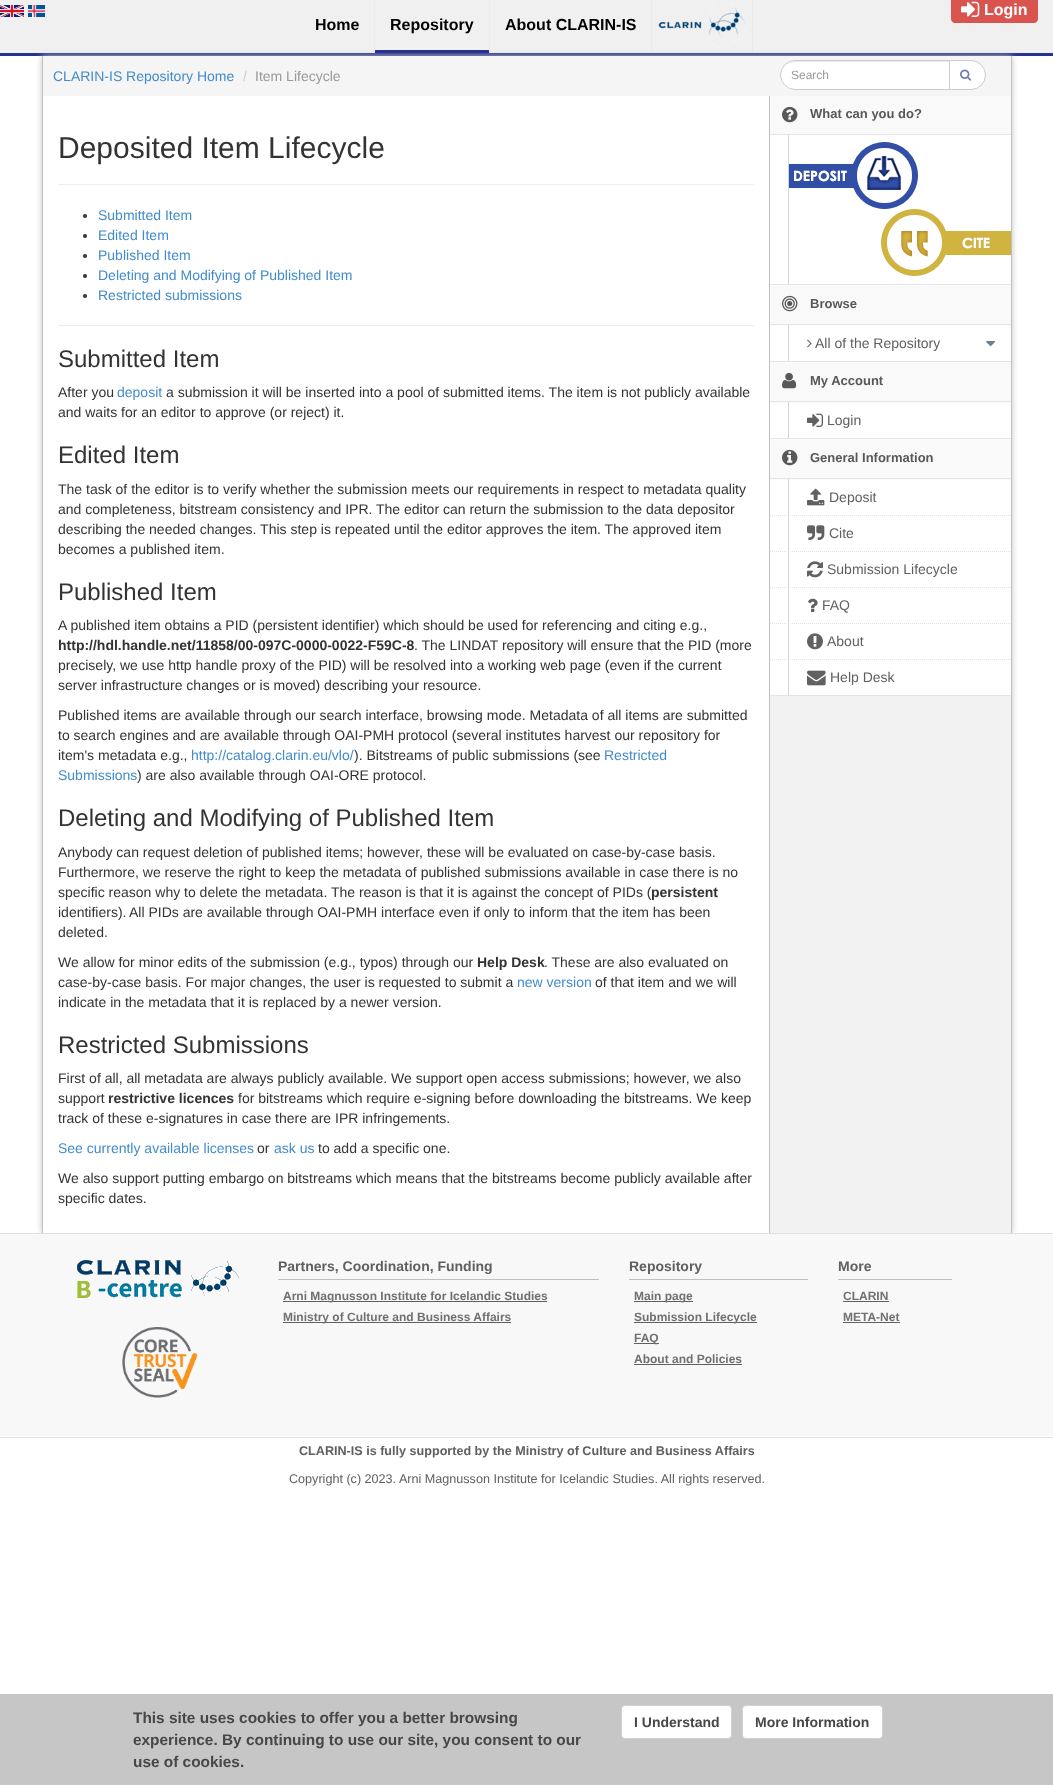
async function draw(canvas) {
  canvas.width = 1053;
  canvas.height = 1785;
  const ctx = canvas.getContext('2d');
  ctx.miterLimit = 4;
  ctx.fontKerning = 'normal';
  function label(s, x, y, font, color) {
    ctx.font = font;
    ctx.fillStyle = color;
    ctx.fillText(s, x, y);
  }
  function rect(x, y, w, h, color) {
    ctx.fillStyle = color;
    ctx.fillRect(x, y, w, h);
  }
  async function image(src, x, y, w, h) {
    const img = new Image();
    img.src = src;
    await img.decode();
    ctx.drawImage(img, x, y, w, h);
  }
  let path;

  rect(0, 0, 1053, 1785, '#fff');
  rect(0, 0, 1053, 53, '#f0f0f0');
  await image('assets/img1.png', 0, 5, 24, 12);
  await image('assets/img2.png', 28, 5, 17, 12);
  ctx.fillStyle = '#d9534f';
  path = new Path2D('M955-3H984V23H955C953 23 951 21 951 19V1C951-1 953-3 955-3Z');
  ctx.fill(path);
  path = new Path2D('M984-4H1034C1036-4 1038-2 1038 0V19C1038 21 1036 23 1034 23H984Z');
  ctx.fill(path);
  await image('assets/img3.png', 961, 1, 19, 16);
  label('Login', 984, 15, 'bold 16px Liberation Sans', '#fff');
  rect(0, 53, 1053, 3, '#29338e');
  ctx.save();
  path = new Path2D('M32 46H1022V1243H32ZM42 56H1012V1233H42Z');
  ctx.clip(path, 'evenodd');
  ctx.fillStyle = '#c0c0c0';
  ctx.filter = 'blur(3px)';
  ctx.beginPath();
  ctx.rect(42, 56, 970, 1177);
  ctx.fill();
  ctx.filter = 'none';
  ctx.restore();
  path = new Path2D('M374.5 0V53');
  ctx.strokeStyle = '#e4e4e4';
  ctx.setLineDash([1, 1]);
  ctx.stroke(path);
  label('Home', 315, 30, 'bold 16px Liberation Sans', '#000');
  path = new Path2D('M489.5 0V53');
  ctx.stroke(path);
  rect(375, 50, 114, 3, '#29338e');
  label('Repository', 390, 30, 'bold 16px Liberation Sans', '#000');
  path = new Path2D('M651.5 0V53');
  ctx.stroke(path);
  label('About CLARIN-IS', 505, 30, 'bold 16px Liberation Sans', '#000');
  path = new Path2D('M752.5 0V53');
  ctx.stroke(path);
  await image('assets/img4.png', 658, 3, 88, 45);
  rect(1011, 56, 1, 1177, '#c0c0c0');
  rect(42, 56, 1, 1177, '#c0c0c0');
  rect(43, 56, 968, 40, '#f5f5f5');
  label('CLARIN-IS Repository Home', 53, 81, '14px Liberation Sans', '#428bca');
  label('/', 243, 81, '14px Liberation Sans', '#ccc');
  label('Item Lifecycle', 255, 81, '14px Liberation Sans', '#999');
  ctx.fillStyle = '#fff';
  ctx.beginPath();
  ctx.roundRect(780, 60, 170, 30, [15, 0, 0, 15]);
  ctx.fill();
  ctx.fillStyle = '#ececec';
  path = new Path2D('M795 62H949V61H821C810 61 780 55 781 75C781 68 787 62 795 62Z');
  ctx.fill(path);
  ctx.beginPath();
  ctx.roundRect(780.5, 60.5, 169, 29, [14.5, 0, 0, 14.5]);
  ctx.strokeStyle = '#ccc';
  ctx.setLineDash([]);
  ctx.stroke();
  label('Search', 791, 79, '12px Liberation Sans', '#999');
  ctx.fillStyle = '#fff';
  ctx.beginPath();
  ctx.roundRect(949.5, 60.5, 36, 29, [0, 14.5, 14.5, 0]);
  ctx.fill();
  ctx.stroke();
  await image('assets/img5.png', 960, 69, 12, 12);
  rect(770, 696, 241, 537, '#f2f2f2');
  rect(769, 96, 1, 1137, '#c0c0c0');
  label('Deposited Item Lifecycle', 58, 158, '30px Liberation Sans', '#333');
  rect(58, 184, 696, 1, '#eee');
  ctx.fillStyle = '#333';
  ctx.beginPath();
  ctx.arc(85, 216, 2, 0, 2 * Math.PI);
  ctx.fill();
  label('Submitted Item', 98, 220, '14px Liberation Sans', '#428bca');
  ctx.fillStyle = '#333';
  ctx.beginPath();
  ctx.arc(85, 236, 2, 0, 2 * Math.PI);
  ctx.fill();
  label('Edited Item', 98, 240, '14px Liberation Sans', '#428bca');
  ctx.fillStyle = '#333';
  ctx.beginPath();
  ctx.arc(85, 256, 2, 0, 2 * Math.PI);
  ctx.fill();
  label('Published Item', 98, 260, '14px Liberation Sans', '#428bca');
  ctx.fillStyle = '#333';
  ctx.beginPath();
  ctx.arc(85, 276, 2, 0, 2 * Math.PI);
  ctx.fill();
  label('Deleting and Modifying of Published Item', 98, 280, '14px Liberation Sans', '#428bca');
  ctx.fillStyle = '#333';
  ctx.beginPath();
  ctx.arc(85, 296, 2, 0, 2 * Math.PI);
  ctx.fill();
  label('Restricted submissions', 98, 300, '14px Liberation Sans', '#428bca');
  rect(58, 325, 696, 1, '#eee');
  label('Submitted Item', 58, 367, '24px Liberation Sans', '#333');
  label('After you', 58, 397, '14px Liberation Sans', '#333');
  label('deposit', 117, 397, '14px Liberation Sans', '#428bca');
  label('a submission it will be inserted into a pool of submitted items. The item is not publicly available', 166, 397, '14px Liberation Sans', '#333');
  label('and waits for an editor to approve (or reject) it.', 58, 417, '14px Liberation Sans', '#333');
  label('Edited Item', 58, 463, '24px Liberation Sans', '#333');
  label('The task of the editor is to verify whether the submission meets our requirements in respect to metadata quality', 58, 494, '14px Liberation Sans', '#333');
  label('and completeness, bitstream consistency and IPR. The editor can return the submission to the data depositor', 58, 514, '14px Liberation Sans', '#333');
  label('describing the needed changes. This step is repeated until the editor approves the item. The approved item', 58, 534, '14px Liberation Sans', '#333');
  label('becomes a published item.', 58, 554, '14px Liberation Sans', '#333');
  label('Published Item', 58, 600, '24px Liberation Sans', '#333');
  label('A published item obtains a PID (persistent identifier) which should be used for referencing and citing e.g.,', 58, 630, '14px Liberation Sans', '#333');
  label('http://hdl.handle.net/11858/00-097C-0000-0022-F59C-8', 58, 650, 'bold 14px Liberation Sans', '#333');
  label('. The LINDAT repository will ensure that the PID (more', 414, 650, '14px Liberation Sans', '#333');
  label('precisely, we use http handle proxy of the PID) will be resolved into a working web page (even if the current', 58, 670, '14px Liberation Sans', '#333');
  label('server infrastructure changes or is moved) describing your resource.', 58, 690, '14px Liberation Sans', '#333');
  label('Published items are available through our search interface, browsing mode. Metadata of all items are submitted', 58, 720, '14px Liberation Sans', '#333');
  label('to search engines and are available through OAI-PMH protocol (several institutes harvest our repository for', 58, 740, '14px Liberation Sans', '#333');
  label('item\'s metadata e.g.,', 58, 760, '14px Liberation Sans', '#333');
  label('http://catalog.clarin.eu/vlo/', 191, 760, '14px Liberation Sans', '#428bca');
  label('). Bitstreams of public submissions (see', 354, 760, '14px Liberation Sans', '#333');
  label('Restricted', 604, 760, '14px Liberation Sans', '#428bca');
  label('Submissions', 58, 780, '14px Liberation Sans', '#428bca');
  label(') are also available through OAI-ORE protocol.', 137, 780, '14px Liberation Sans', '#333');
  label('Deleting and Modifying of Published Item', 58, 826, '24px Liberation Sans', '#333');
  label('Anybody can request deletion of published items; however, these will be evaluated on case-by-case basis.', 58, 857, '14px Liberation Sans', '#333');
  label('Furthermore, we reserve the right to keep the metadata of published submissions available in case there is no', 58, 877, '14px Liberation Sans', '#333');
  label('specific reason why to delete the metadata. The reason is that it is against the concept of PIDs (', 58, 897, '14px Liberation Sans', '#333');
  label('persistent', 651, 897, 'bold 14px Liberation Sans', '#333');
  label('identifiers).', 58, 917, '14px Liberation Sans', '#333');
  label('All PIDs are available through OAI-PMH interface even if only to inform that the item has been', 129, 917, '14px Liberation Sans', '#333');
  label('deleted.', 58, 937, '14px Liberation Sans', '#333');
  label('We allow for minor edits of the submission (e.g., typos) through our', 58, 967, '14px Liberation Sans', '#333');
  label('Help Desk', 477, 967, 'bold 14px Liberation Sans', '#333');
  label('. These are also evaluated on', 544, 967, '14px Liberation Sans', '#333');
  label('case-by-case basis. For major changes, the user is requested to submit a', 58, 987, '14px Liberation Sans', '#333');
  label('new version', 517, 987, '14px Liberation Sans', '#428bca');
  label('of that item and we will', 595, 987, '14px Liberation Sans', '#333');
  label('indicate in the metadata that it is replaced by a newer version.', 58, 1007, '14px Liberation Sans', '#333');
  label('Restricted Submissions', 58, 1053, '24px Liberation Sans', '#333');
  label('First of all, all metadata are always publicly available. We support open access submissions; however, we also', 58, 1083, '14px Liberation Sans', '#333');
  label('support', 58, 1103, '14px Liberation Sans', '#333');
  label('restrictive licences', 108, 1103, 'bold 14px Liberation Sans', '#333');
  label('for bitstreams which require e-signing before downloading the bitstreams. We keep', 238, 1103, '14px Liberation Sans', '#333');
  label('track of these e-signatures in case there are IPR infringements.', 58, 1123, '14px Liberation Sans', '#333');
  label('See currently available licenses', 58, 1153, '14px Liberation Sans', '#428bca');
  label('or', 257, 1153, '14px Liberation Sans', '#333');
  label('ask us', 274, 1153, '14px Liberation Sans', '#428bca');
  label('to add a specific one.', 318, 1153, '14px Liberation Sans', '#333');
  label('We also support putting embargo on bitstreams which means that the bitstreams become publicly available after', 58, 1183, '14px Liberation Sans', '#333');
  label('specific dates.', 58, 1203, '14px Liberation Sans', '#333');
  rect(770, 284, 241, 1, '#e5e5e5');
  rect(770, 96, 241, 38, '#f9f9f9');
  await image('assets/img6.png', 782, 106, 16, 17);
  label('What can you do?', 810, 118, 'bold 13px Liberation Sans', '#585858');
  rect(770, 134, 241, 1, '#e5e5e5');
  rect(788, 135, 1, 149, '#ccd7e2');
  await image('assets/img7.png', 789, 142, 129, 67);
  await image('assets/img8.png', 881, 209, 130, 67);
  rect(770, 285, 241, 1, '#fcfcfc');
  rect(770, 361, 241, 1, '#e5e5e5');
  rect(770, 286, 241, 38, '#f9f9f9');
  await image('assets/img9.png', 782, 295, 16, 17);
  label('Browse', 810, 308, 'bold 13px Liberation Sans', '#585858');
  rect(770, 324, 241, 1, '#e5e5e5');
  rect(770, 325, 241, 1, '#fafafa');
  rect(788, 325, 1, 36, '#ccd7e2');
  await image('assets/img10.png', 807, 339, 5, 9);
  label('All of the Repository', 815, 348, '14px Liberation Sans', '#606060');
  await image('assets/img11.png', 986, 341, 10, 6);
  rect(770, 362, 241, 1, '#fcfcfc');
  rect(770, 438, 241, 1, '#e5e5e5');
  rect(770, 363, 241, 38, '#f9f9f9');
  await image('assets/img12.png', 782, 372, 15, 17);
  label('My Account', 810, 385, 'bold 13px Liberation Sans', '#585858');
  rect(770, 401, 241, 1, '#e5e5e5');
  rect(770, 402, 241, 1, '#fafafa');
  rect(788, 402, 1, 36, '#ccd7e2');
  await image('assets/img13.png', 807, 413, 16, 14);
  label('Login', 827, 425, '14px Liberation Sans', '#606060');
  rect(770, 439, 241, 1, '#fcfcfc');
  rect(770, 695, 241, 1, '#e5e5e5');
  rect(770, 440, 241, 38, '#f9f9f9');
  await image('assets/img14.png', 782, 449, 16, 17);
  label('General Information', 810, 462, 'bold 13px Liberation Sans', '#585858');
  rect(770, 478, 241, 1, '#e5e5e5');
  rect(770, 479, 241, 1, '#fafafa');
  path = new Path2D('M770 515.5H1011');
  ctx.strokeStyle = '#e4e4e4';
  ctx.setLineDash([1, 1]);
  ctx.stroke(path);
  path = new Path2D('M770 551.5H1011');
  ctx.stroke(path);
  path = new Path2D('M770 587.5H1011');
  ctx.stroke(path);
  path = new Path2D('M770 623.5H1011');
  ctx.stroke(path);
  path = new Path2D('M770 659.5H1011');
  ctx.stroke(path);
  rect(788, 479, 1, 216, '#ccd7e2');
  await image('assets/img15.png', 807, 488, 18, 18);
  label('Deposit', 829, 502, '14px Liberation Sans', '#606060');
  await image('assets/img16.png', 807, 525, 18, 15);
  label('Cite', 829, 538, '14px Liberation Sans', '#606060');
  await image('assets/img17.png', 807, 561, 16, 17);
  label('Submission Lifecycle', 827, 574, '14px Liberation Sans', '#606060');
  await image('assets/img18.png', 808, 598, 10, 14);
  label('FAQ', 822, 610, '14px Liberation Sans', '#606060');
  await image('assets/img19.png', 807, 633, 16, 17);
  label('About', 827, 646, '14px Liberation Sans', '#606060');
  await image('assets/img20.png', 807, 670, 19, 16);
  label('Help Desk', 830, 682, '14px Liberation Sans', '#606060');
  rect(0, 1234, 1053, 202, '#f8f8f8');
  rect(0, 1233, 1053, 1, '#e0e0e0');
  rect(0, 1437, 1053, 1, '#e0e0e0');
  await image('assets/img21.png', 77, 1260, 162, 38);
  await image('assets/img22.png', 122, 1327, 76, 71);
  rect(278, 1279, 321, 1, '#c0c0c0');
  label('Partners, Coordination, Funding', 278, 1271, 'bold 14px Liberation Sans', '#606060');
  rect(283, 1301, 264, 1, '#606060');
  label('Arni Magnusson Institute for Icelandic Studies', 283, 1300, 'bold 12px Liberation Sans', '#707070');
  rect(283, 1322, 228, 1, '#606060');
  label('Ministry of Culture and Business Affairs', 283, 1321, 'bold 12px Liberation Sans', '#707070');
  rect(629, 1279, 179, 1, '#c0c0c0');
  label('Repository', 629, 1271, 'bold 14px Liberation Sans', '#606060');
  rect(634, 1301, 59, 1, '#606060');
  label('Main page', 634, 1300, 'bold 12px Liberation Sans', '#707070');
  rect(634, 1322, 123, 1, '#606060');
  label('Submission Lifecycle', 634, 1321, 'bold 12px Liberation Sans', '#707070');
  rect(634, 1343, 25, 1, '#606060');
  label('FAQ', 634, 1342, 'bold 12px Liberation Sans', '#707070');
  label('About and Policies', 634, 1363, 'bold 12px Liberation Sans', '#707070');
  rect(634, 1364, 108, 1, '#606060');
  rect(838, 1279, 114, 1, '#c0c0c0');
  label('More', 838, 1271, 'bold 14px Liberation Sans', '#606060');
  label('CLARIN', 843, 1300, 'bold 12px Liberation Sans', '#707070');
  rect(843, 1301, 46, 1, '#606060');
  label('META-Net', 843, 1321, 'bold 12px Liberation Sans', '#707070');
  rect(843, 1322, 57, 1, '#606060');
  label('CLARIN-IS is fully supported by the Ministry of Culture and Business Affairs', 299, 1455, 'bold 12.6px Liberation Sans', '#606060');
  label('Copyright (c) 2023. Arni Magnusson Institute for Icelandic Studies. All rights reserved.', 289, 1483, '12.6px Liberation Sans', '#606060');
  rect(0, 1694, 1053, 91, '#c6c6c6');
  label('This site uses cookies to offer you a better browsing', 133, 1723, 'bold 15.4px Liberation Sans', '#474747');
  label('experience. By continuing to use our site, you consent to our', 133, 1745, 'bold 15.4px Liberation Sans', '#474747');
  label('use of cookies.', 133, 1767, 'bold 15.4px Liberation Sans', '#474747');
  ctx.fillStyle = '#fff';
  ctx.beginPath();
  ctx.roundRect(621.5, 1705.5, 110, 33, 3.5);
  ctx.fill();
  ctx.strokeStyle = '#d1d1d1';
  ctx.setLineDash([]);
  ctx.stroke();
  label('I Understand', 634, 1727, 'bold 14px Liberation Sans', '#474747');
  ctx.fillStyle = '#fff';
  ctx.beginPath();
  ctx.roundRect(742.5, 1705.5, 140, 33, 3.5);
  ctx.fill();
  ctx.stroke();
  label('More Information', 755, 1727, 'bold 14px Liberation Sans', '#474747');
}

draw(document.querySelector('canvas'));
